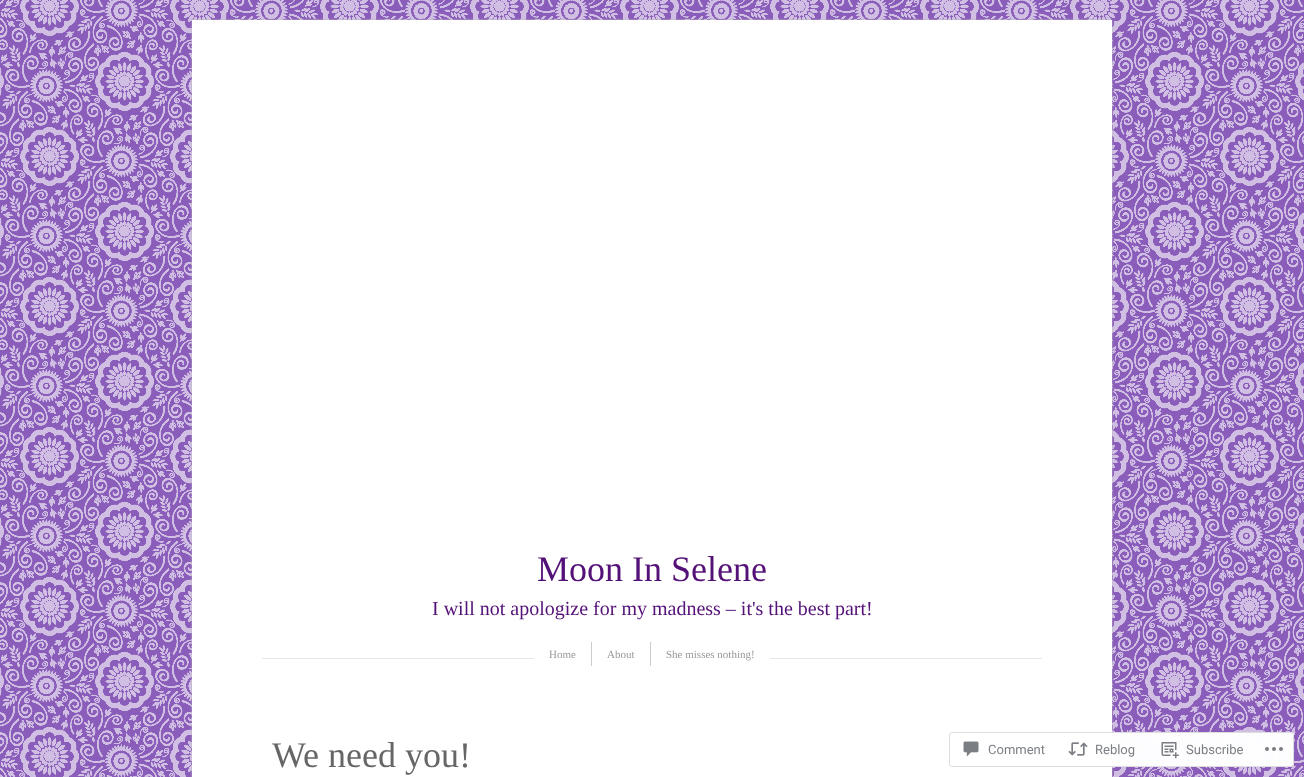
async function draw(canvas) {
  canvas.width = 1304;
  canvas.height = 777;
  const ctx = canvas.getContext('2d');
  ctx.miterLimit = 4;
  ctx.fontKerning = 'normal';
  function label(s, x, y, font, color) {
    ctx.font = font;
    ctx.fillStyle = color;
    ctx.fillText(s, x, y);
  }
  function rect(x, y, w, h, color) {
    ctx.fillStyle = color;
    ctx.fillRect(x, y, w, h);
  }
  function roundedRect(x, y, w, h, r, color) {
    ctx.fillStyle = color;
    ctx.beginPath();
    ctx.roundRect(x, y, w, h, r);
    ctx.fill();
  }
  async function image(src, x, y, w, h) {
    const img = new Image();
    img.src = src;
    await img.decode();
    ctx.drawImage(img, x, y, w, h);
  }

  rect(0, 0, 1304, 777, '#8a5dba');
  await image('assets/img1.png', 0, 0, 1304, 777);
  ctx.fillStyle = '#bbb';
  ctx.filter = 'blur(1px)';
  ctx.beginPath();
  ctx.rect(192, 20, 920, 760);
  ctx.fill();
  ctx.filter = 'none';
  rect(192, 20, 920, 757, '#fff');
  label('Moon In Selene', 537, 581, '36px Liberation Serif', '#541177');
  label('I will not apologize for my madness – it\'s the best part!', 432, 615, '20px Liberation Serif', '#541177');
  rect(262, 658, 780, 1, '#e7e7e7');
  rect(534, 658, 236, 1, '#fff');
  label('Home', 549, 658, '11px Liberation Serif', '#999');
  rect(591, 642, 1, 24, '#ccc');
  label('About', 607, 658, '11px Liberation Serif', '#999');
  rect(650, 642, 1, 24, '#ccc');
  label('She misses nothing!', 666, 658, '11px Liberation Serif', '#999');
  label('We need you!', 272, 767, '36px Liberation Serif', '#666');
  roundedRect(949, 732, 345, 35, 3, '#fffffffa');
  ctx.beginPath();
  ctx.roundRect(949.5, 732.5, 344, 34, 2.5);
  ctx.strokeStyle = '#dcdcdefa';
  ctx.stroke();
  await image('assets/img2.png', 963, 741, 16, 16);
  label('Comment', 988, 754, '13px Roboto', '#7b7f85');
  await image('assets/img3.png', 1068, 742, 20, 14);
  label('Reblog', 1095, 754, '13px Roboto', '#7b7f85');
  await image('assets/img4.png', 1161, 742, 18, 17);
  label('Subscribe', 1186, 754, '13px Roboto', '#7b7f85');
  await image('assets/img5.png', 1265, 747, 18, 4);
}

draw(document.querySelector('canvas'));
